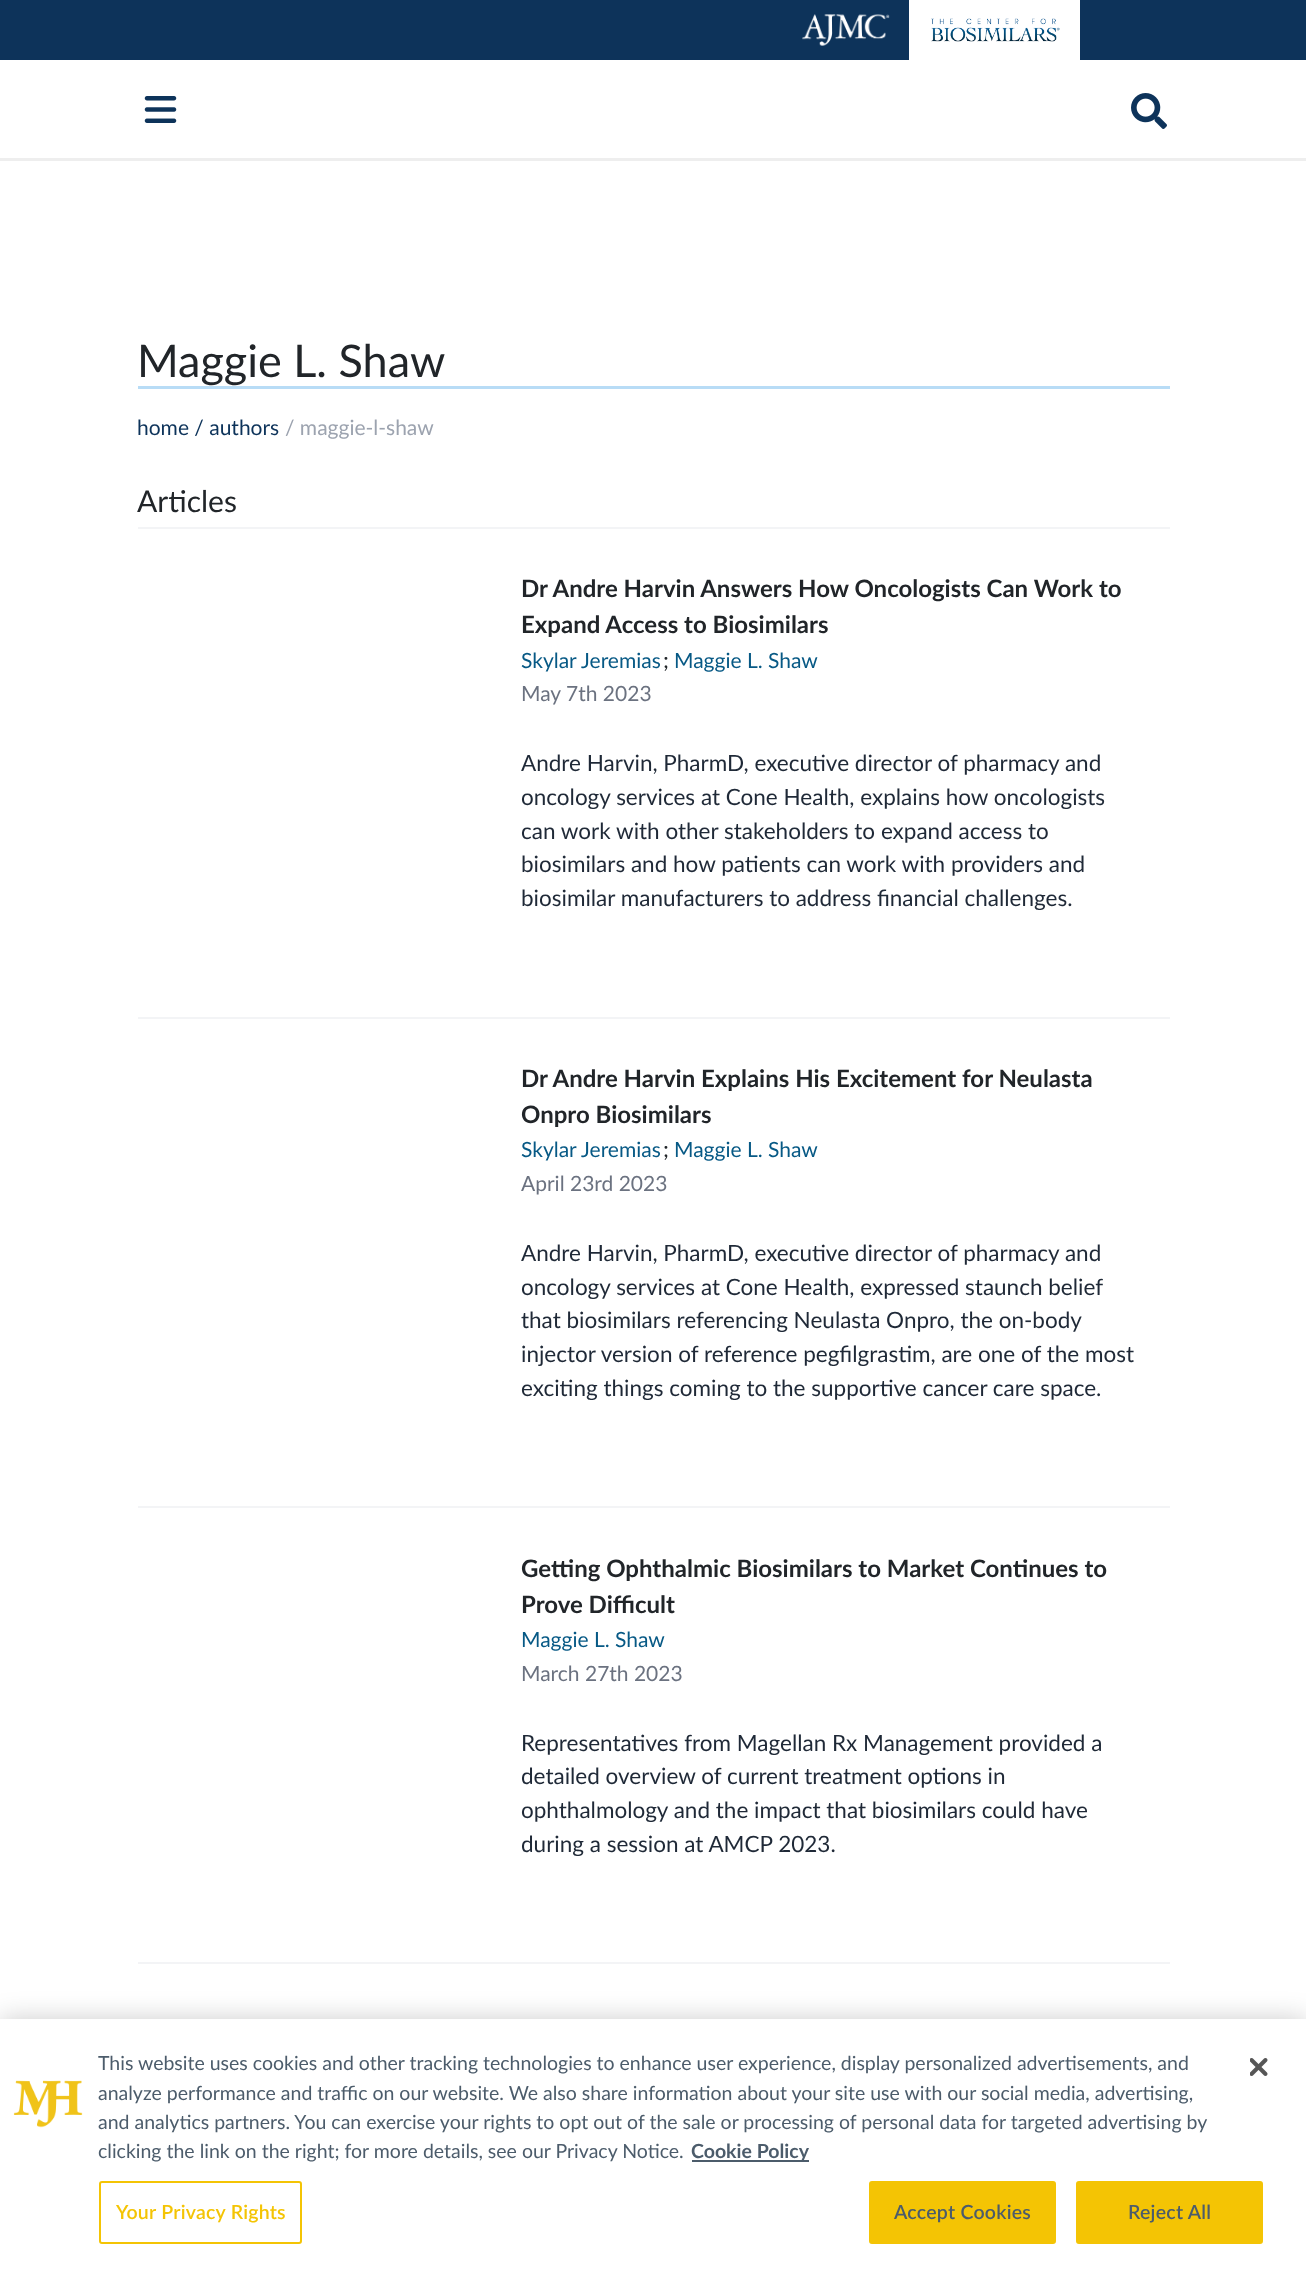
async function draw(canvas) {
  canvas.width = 1306;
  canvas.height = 2272;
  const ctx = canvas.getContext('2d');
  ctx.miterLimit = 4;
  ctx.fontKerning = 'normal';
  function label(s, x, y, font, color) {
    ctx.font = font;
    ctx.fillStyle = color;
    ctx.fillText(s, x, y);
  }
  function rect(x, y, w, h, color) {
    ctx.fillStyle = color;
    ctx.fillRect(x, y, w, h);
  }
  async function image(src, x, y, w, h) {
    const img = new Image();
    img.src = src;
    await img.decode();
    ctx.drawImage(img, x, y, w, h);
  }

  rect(0, 0, 1306, 2272, '#fff');
  rect(0, 0, 1306, 60, '#0d335a');
  await image('assets/img1.png', 802, 14, 88, 32);
  rect(909, 0, 171, 60, '#fff');
  await image('assets/img2.png', 931, 18, 129, 24);
  await image('assets/img3.png', 144, 96, 33, 27);
  await image('assets/img4.png', 1131, 93, 36, 36);
  rect(0, 158, 1306, 3, '#eee');
  label('Maggie L. Shaw', 137, 377, '45px Lato', '#212529');
  rect(138, 386, 1032, 3, '#b8dcf6');
  label('home / authors', 137, 435, '21px Lato', '#0d335a');
  label('/ maggie-l-shaw', 285, 435, '21px Lato', '#9ca3af');
  label('Articles', 137, 512, '30px Lato', '#212529');
  rect(138, 527, 1032, 2, '#f3f4f6');
  label('Dr Andre Harvin Answers How Oncologists Can Work to', 521, 597, 'bold 24px Lato', '#212529');
  label('Expand Access to Biosimilars', 521, 633, 'bold 24px Lato', '#212529');
  label('Skylar Jeremias', 521, 668, '21px Lato', '#075985');
  label(';', 663, 668, '22.5px Lato', '#212529');
  label('Maggie L. Shaw', 674, 668, '21px Lato', '#075985');
  label('May 7th 2023', 521, 701, '21px Lato', '#6b7280');
  label('Andre Harvin, PharmD, executive director of pharmacy and', 521, 771, '22.5px Lato', '#1f2937');
  label('oncology services at Cone Health, explains how oncologists', 521, 805, '22.5px Lato', '#1f2937');
  label('can work with other stakeholders to expand access to', 521, 839, '22.5px Lato', '#1f2937');
  label('biosimilars and how patients can work with providers and', 521, 872, '22.5px Lato', '#1f2937');
  label('biosimilar manufacturers to address financial challenges.', 521, 906, '22.5px Lato', '#1f2937');
  rect(138, 1017, 1032, 2, '#f3f4f6');
  label('Dr Andre Harvin Explains His Excitement for Neulasta', 521, 1087, 'bold 24px Lato', '#212529');
  label('Onpro Biosimilars', 521, 1123, 'bold 24px Lato', '#212529');
  label('Skylar Jeremias', 521, 1157, '21px Lato', '#075985');
  label(';', 663, 1157, '22.5px Lato', '#212529');
  label('Maggie L. Shaw', 674, 1157, '21px Lato', '#075985');
  label('April 23rd 2023', 521, 1191, '21px Lato', '#6b7280');
  label('Andre Harvin, PharmD, executive director of pharmacy and', 521, 1261, '22.5px Lato', '#1f2937');
  label('oncology services at Cone Health, expressed staunch belief', 521, 1295, '22.5px Lato', '#1f2937');
  label('that biosimilars referencing Neulasta Onpro, the on-body', 521, 1328, '22.5px Lato', '#1f2937');
  label('injector version of reference pegfilgrastim, are one of the most', 521, 1362, '22.5px Lato', '#1f2937');
  label('exciting things coming to the supportive cancer care space.', 521, 1396, '22.5px Lato', '#1f2937');
  rect(138, 1506, 1032, 2, '#f3f4f6');
  label('Getting Ophthalmic Biosimilars to Market Continues to', 521, 1577, 'bold 24px Lato', '#212529');
  label('Prove Difficult', 521, 1613, 'bold 24px Lato', '#212529');
  label('Maggie L. Shaw', 521, 1647, '21px Lato', '#075985');
  label('March 27th 2023', 521, 1681, '21px Lato', '#6b7280');
  label('Representatives from Magellan Rx Management provided a', 521, 1751, '22.5px Lato', '#1f2937');
  label('detailed overview of current treatment options in', 521, 1784, '22.5px Lato', '#1f2937');
  label('ophthalmology and the impact that biosimilars could have', 521, 1818, '22.5px Lato', '#1f2937');
  label('during a session at AMCP 2023.', 521, 1852, '22.5px Lato', '#1f2937');
  rect(138, 1962, 1032, 2, '#f3f4f6');
  ctx.fillStyle = '#00000033';
  ctx.filter = 'blur(13.5px)';
  ctx.beginPath();
  ctx.rect(0, 2019, 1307, 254);
  ctx.fill();
  ctx.filter = 'none';
  rect(0, 2019, 1306, 253, '#fff');
  await image('assets/img5.png', 13, 2080, 70, 48);
  label('This website uses cookies and other tracking technologies to enhance user experience, display personalized advertisements, and', 98, 2070, '19.5px Lato', '#4c5c6b');
  label('analyze performance and traffic on our website. We also share information about your site use with our social media, advertising,', 98, 2100, '19.5px Lato', '#4c5c6b');
  label('and analytics partners. You can exercise your rights to opt out of the sale or processing of personal data for targeted advertising by', 98, 2129, '19.5px Lato', '#4c5c6b');
  label('clicking the link on the right; for more details, see our Privacy Notice.', 98, 2158, '19.5px Lato', '#4c5c6b');
  rect(692, 2160, 117, 2, '#4c5c6b');
  label('Cookie Policy', 691, 2158, 'bold 19.5px Lato', '#4c5c6b');
  ctx.beginPath();
  ctx.roundRect(100, 2182, 201, 61, 2);
  ctx.strokeStyle = '#f4c404';
  ctx.lineWidth = 2;
  ctx.stroke();
  ctx.letterSpacing = '0.25px';
  label('Your Privacy Rights', 116, 2219, '600 19.5px Lato', '#f4c404');
  ctx.beginPath();
  ctx.roundRect(870, 2182, 185, 61, 2);
  ctx.fill();
  ctx.stroke();
  label('Accept Cookies', 894, 2219, '600 19.5px Lato', '#4c5c6b');
  ctx.fillStyle = '#f4c404';
  ctx.beginPath();
  ctx.roundRect(1077, 2182, 185, 61, 2);
  ctx.fill();
  ctx.stroke();
  label('Reject All', 1128, 2219, '600 19.5px Lato', '#4c5c6b');
  await image('assets/img6.png', 1250, 2058, 18, 18);
}

draw(document.querySelector('canvas'));
